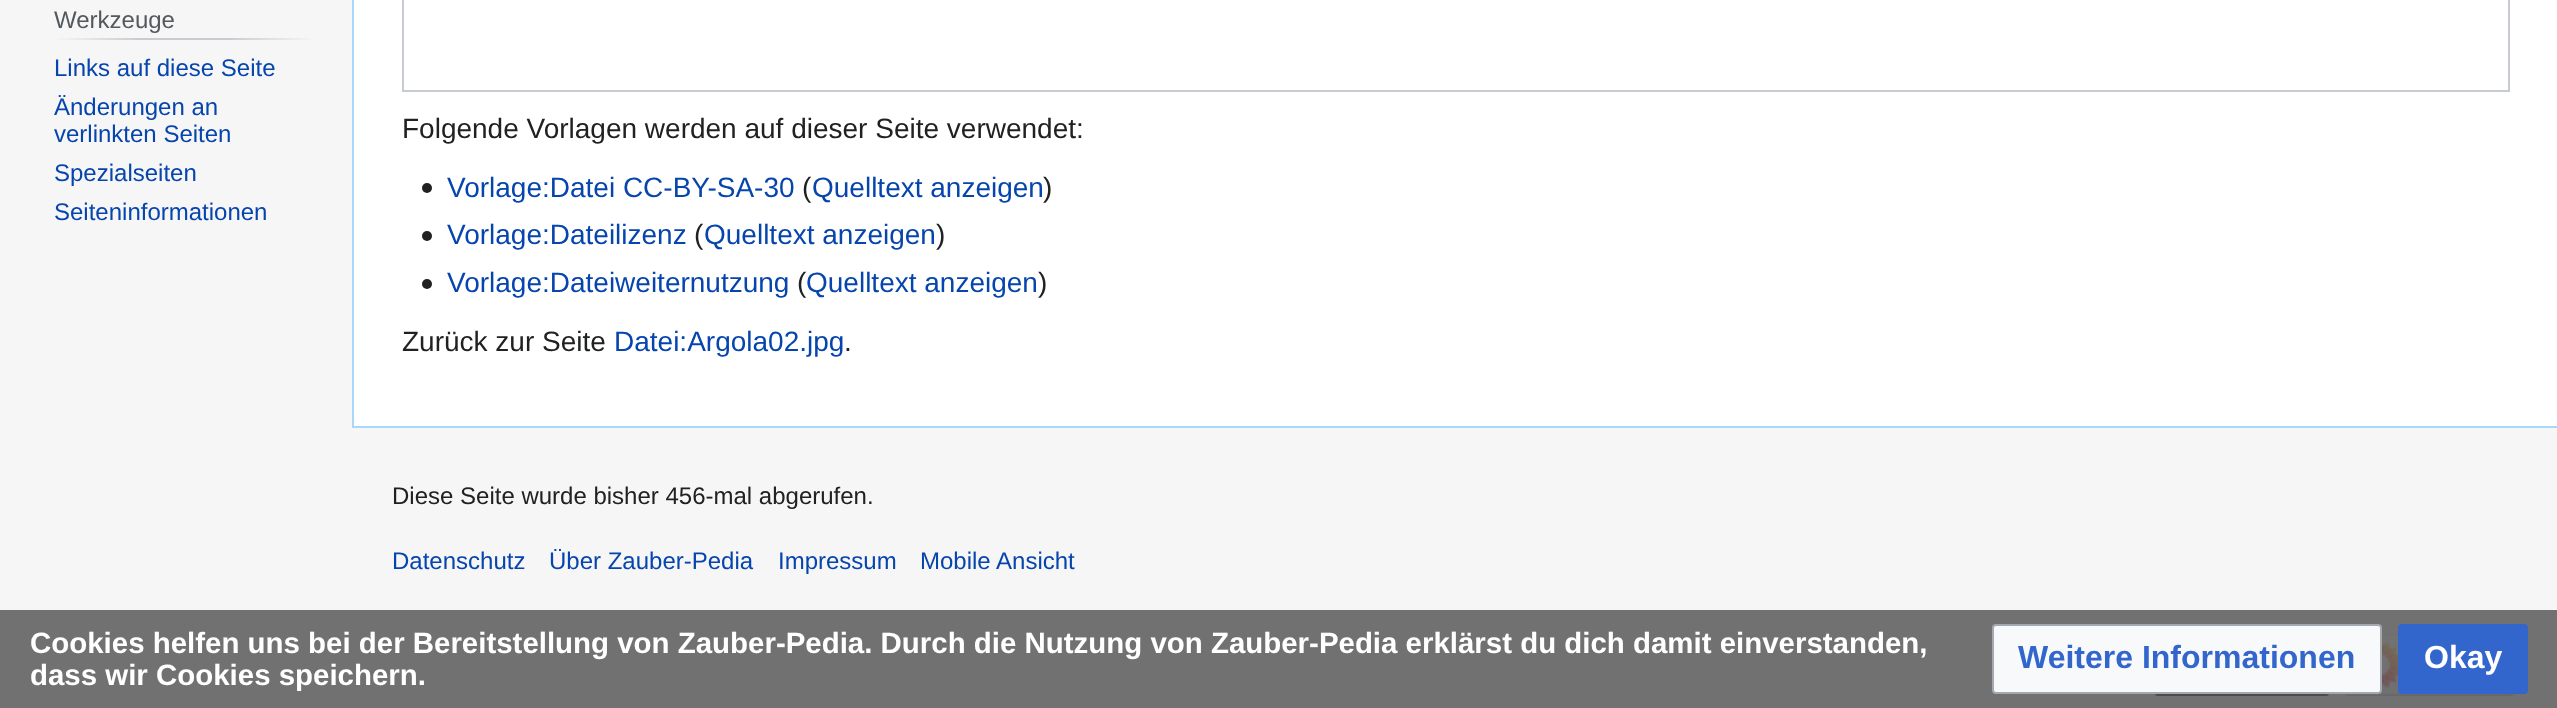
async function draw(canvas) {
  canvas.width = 2557;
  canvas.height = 708;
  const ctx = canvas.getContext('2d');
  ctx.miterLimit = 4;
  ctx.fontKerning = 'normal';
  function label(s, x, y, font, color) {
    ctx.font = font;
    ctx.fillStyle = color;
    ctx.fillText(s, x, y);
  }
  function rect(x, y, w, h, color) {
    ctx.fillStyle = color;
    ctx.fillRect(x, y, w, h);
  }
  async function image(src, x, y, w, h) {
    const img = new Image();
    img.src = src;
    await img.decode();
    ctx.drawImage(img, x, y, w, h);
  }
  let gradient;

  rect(0, 0, 2557, 708, '#f6f6f6');
  rect(0, 610, 2557, 98, '#717171');
  gradient = ctx.createLinearGradient(54, 39, 316, 39);
  gradient.addColorStop(0, '#f6f6f6');
  gradient.addColorStop(0.33, '#c8ccd1');
  gradient.addColorStop(0.66, '#c8ccd1');
  gradient.addColorStop(1, '#f6f6f6');
  ctx.fillStyle = gradient;
  ctx.fillRect(54, 38, 262, 2);
  label('Werkzeuge', 54, 28, '24px Liberation Sans', '#54595d');
  label('Links auf diese Seite', 54, 76, '24px Liberation Sans', '#0645ad');
  label('Änderungen an', 54, 115, '24px Liberation Sans', '#0645ad');
  label('verlinkten Seiten', 54, 142, '24px Liberation Sans', '#0645ad');
  label('Spezialseiten', 54, 181, '24px Liberation Sans', '#0645ad');
  label('Seiteninformationen', 54, 220, '24px Liberation Sans', '#0645ad');
  rect(354, 0, 2203, 426, '#fff');
  rect(352, 426, 2205, 2, '#a7d7f9');
  rect(352, 0, 2, 428, '#a7d7f9');
  ctx.strokeStyle = '#c8ccd1';
  ctx.lineWidth = 2;
  ctx.strokeRect(403, -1, 2106, 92);
  label('Folgende Vorlagen werden auf dieser Seite verwendet:', 402, 138, '28px Liberation Sans', '#202122');
  await image('assets/img1.png', 422, 183, 10, 10);
  label('Vorlage:Datei CC-BY-SA-30', 447, 197, '28px Liberation Sans', '#0645ad');
  label('(', 802, 197, '28px Liberation Sans', '#202122');
  label('Quelltext anzeigen', 812, 197, '28px Liberation Sans', '#0645ad');
  label(')', 1043, 197, '28px Liberation Sans', '#202122');
  await image('assets/img1.png', 422, 231, 10, 10);
  label('Vorlage:Dateilizenz', 447, 244, '28px Liberation Sans', '#0645ad');
  label('(', 694, 244, '28px Liberation Sans', '#202122');
  label('Quelltext anzeigen', 704, 244, '28px Liberation Sans', '#0645ad');
  label(')', 936, 244, '28px Liberation Sans', '#202122');
  await image('assets/img1.png', 422, 279, 10, 10);
  label('Vorlage:Dateiweiternutzung', 447, 292, '28px Liberation Sans', '#0645ad');
  label('(', 797, 292, '28px Liberation Sans', '#202122');
  label('Quelltext anzeigen', 806, 292, '28px Liberation Sans', '#0645ad');
  label(')', 1038, 292, '28px Liberation Sans', '#202122');
  label('Zurück zur Seite', 402, 351, '28px Liberation Sans', '#202122');
  label('Datei:Argola02.jpg', 614, 351, '28px Liberation Sans', '#0645ad');
  label('.', 844, 351, '28px Liberation Sans', '#202122');
  label('Diese Seite wurde bisher 456-mal abgerufen.', 392, 504, '24px Liberation Sans', '#202122');
  label('Datenschutz', 392, 569, '24px Liberation Sans', '#0645ad');
  label('Über Zauber-Pedia', 549, 569, '24px Liberation Sans', '#0645ad');
  label('Impressum', 778, 569, '24px Liberation Sans', '#0645ad');
  label('Mobile Ansicht', 920, 569, '24px Liberation Sans', '#0645ad');
  await image('assets/img2.png', 2154, 694, 176, 2);
  await image('assets/img3.png', 2343, 634, 174, 62);
  label('Cookies helfen uns bei der Bereitstellung von Zauber-Pedia. Durch die Nutzung von Zauber-Pedia erklärst du dich damit einverstanden,', 30, 653, 'bold 29.45px Liberation Sans', '#fff');
  label('dass wir Cookies speichern.', 30, 685, 'bold 29.45px Liberation Sans', '#fff');
  ctx.fillStyle = '#f8f9fa';
  ctx.beginPath();
  ctx.roundRect(1993, 625, 388, 68, 3);
  ctx.fill();
  ctx.strokeStyle = '#a2a9b1';
  ctx.stroke();
  label('Weitere Informationen', 2018, 668, 'bold 32px Liberation Sans', '#36c');
  ctx.beginPath();
  ctx.roundRect(2399, 625, 128, 68, 3);
  ctx.fill();
  ctx.strokeStyle = '#36c';
  ctx.stroke();
  label('Okay', 2424, 668, 'bold 32px Liberation Sans', '#fff');
}

draw(document.querySelector('canvas'));
